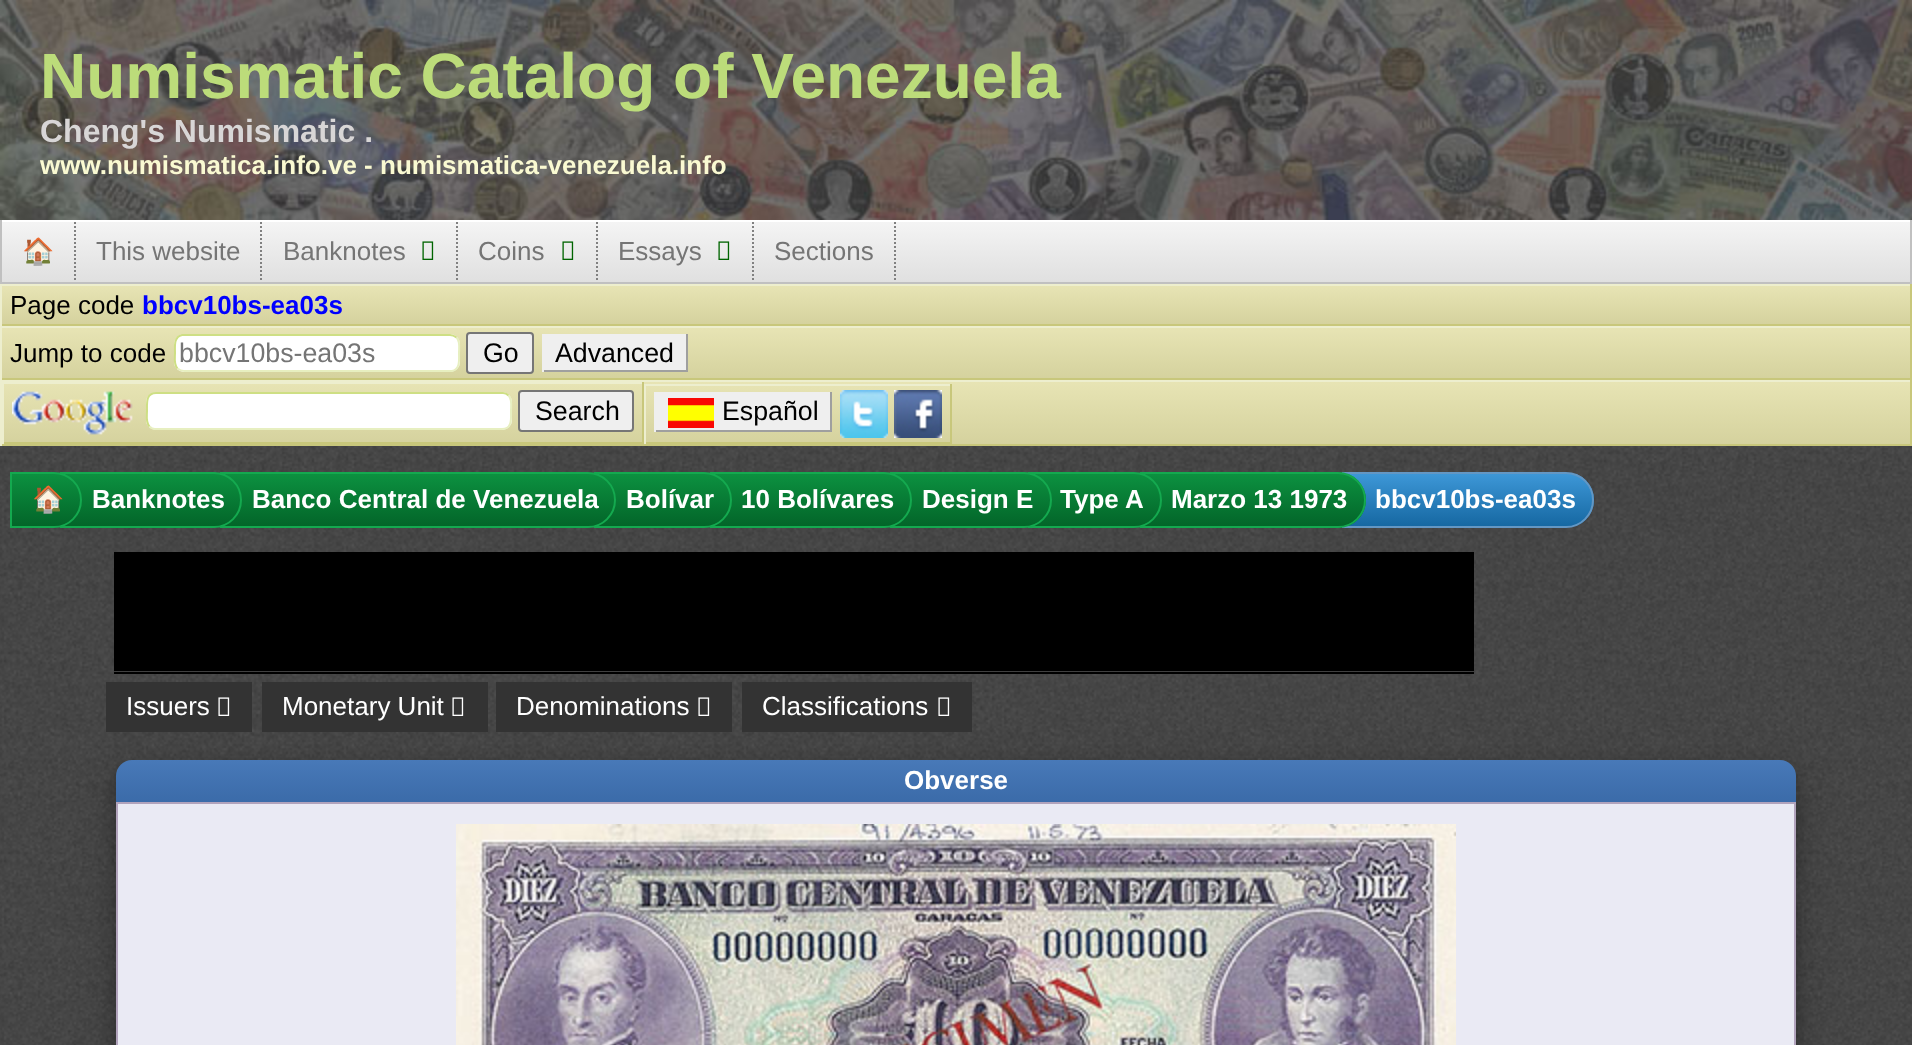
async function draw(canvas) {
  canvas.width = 1912;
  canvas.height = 1045;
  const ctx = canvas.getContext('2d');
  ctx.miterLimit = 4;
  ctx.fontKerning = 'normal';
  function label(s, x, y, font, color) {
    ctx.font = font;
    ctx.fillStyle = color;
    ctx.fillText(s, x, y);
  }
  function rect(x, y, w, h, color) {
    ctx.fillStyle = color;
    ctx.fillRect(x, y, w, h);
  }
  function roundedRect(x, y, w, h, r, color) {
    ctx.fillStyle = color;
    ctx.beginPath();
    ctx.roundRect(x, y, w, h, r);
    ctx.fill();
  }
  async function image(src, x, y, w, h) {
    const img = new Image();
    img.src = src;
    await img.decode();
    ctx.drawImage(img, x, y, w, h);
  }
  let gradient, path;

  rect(0, 0, 1912, 1045, '#fff');
  await image('assets/img1.png', 0, 446, 1912, 599);
  await image('assets/img2.png', 0, 0, 1912, 220);
  label('Numismatic Catalog of Venezuela', 40, 98, 'bold 64px Liberation Sans', '#bcdc7a');
  label('Cheng\'s Numismatic .', 40, 142, 'bold 32px Liberation Sans', '#d8d6d6');
  label('www.numismatica.info.ve - numismatica-venezuela.info', 40, 174, 'bold 26px Liberation Sans', '#fafad2');
  gradient = ctx.createLinearGradient(956, 282, 956, 222);
  gradient.addColorStop(0, '#e0e0e0');
  gradient.addColorStop(1, '#f4f4f4');
  ctx.fillStyle = gradient;
  ctx.fillRect(2, 222, 1908, 60);
  rect(1910, 220, 2, 64, '#c0c0c0');
  rect(0, 282, 1912, 2, '#c0c0c0');
  rect(0, 220, 2, 64, '#c0c0c0');
  path = new Path2D('M75 222V282');
  ctx.strokeStyle = '#808080';
  ctx.lineWidth = 2;
  ctx.setLineDash([2, 2]);
  ctx.stroke(path);
  label('🏠', 22, 260, '26px Noto Color Emoji', '#757575');
  path = new Path2D('M261 222V282');
  ctx.stroke(path);
  label('This website', 96, 260, '26px Liberation Sans', '#757575');
  path = new Path2D('M457 222V282');
  ctx.stroke(path);
  label('Banknotes', 283, 260, '26px Liberation Sans', '#757575');
  await image('assets/img3.png', 422, 241, 12, 19);
  path = new Path2D('M597 222V282');
  ctx.stroke(path);
  label('Coins', 478, 260, '26px Liberation Sans', '#757575');
  await image('assets/img3.png', 562, 241, 12, 19);
  path = new Path2D('M753 222V282');
  ctx.stroke(path);
  label('Essays', 618, 260, '26px Liberation Sans', '#757575');
  await image('assets/img3.png', 718, 241, 12, 19);
  path = new Path2D('M895 222V282');
  ctx.stroke(path);
  label('Sections', 774, 260, '26px Liberation Sans', '#757575');
  gradient = ctx.createLinearGradient(956, 324, 956, 286);
  gradient.addColorStop(0, '#d5d29e');
  gradient.addColorStop(1, '#e7e4b4');
  ctx.fillStyle = gradient;
  ctx.fillRect(2, 286, 1908, 38);
  rect(0, 284, 1912, 2, '#edeece');
  rect(1910, 284, 2, 42, '#c8c77b');
  rect(0, 324, 1912, 2, '#c8c77b');
  rect(0, 284, 2, 42, '#edeece');
  label('Page code', 10, 314, '26px Liberation Sans', '#000');
  label('bbcv10bs-ea03s', 142, 314, 'bold 26px Liberation Sans', '#00f');
  gradient = ctx.createLinearGradient(956, 378, 956, 328);
  gradient.addColorStop(0, '#d5d29e');
  gradient.addColorStop(1, '#e7e4b4');
  ctx.fillStyle = gradient;
  ctx.fillRect(2, 328, 1908, 50);
  rect(0, 326, 1912, 2, '#edeece');
  rect(1910, 326, 2, 54, '#c8c77b');
  rect(0, 378, 1912, 2, '#c8c77b');
  rect(0, 326, 2, 54, '#edeece');
  label('Jump to code', 10, 362, '26px Liberation Sans', '#000');
  roundedRect(174, 334, 286, 38, 10, '#fff');
  path = new Path2D('M456.5 337.5C460.5 341.5 459 348 459 353C459 359.5 460.5 369 452 371H184C181.5 371 179.5 370 177.5 368.5');
  ctx.strokeStyle = '#e7efc0';
  ctx.setLineDash([]);
  ctx.stroke(path);
  path = new Path2D('M177.5 368.5C173.5 364.5 175 358 175 353C175 346.5 173.5 337 182 335H450C452.5 335 454.5 336 456.5 337.5');
  ctx.strokeStyle = '#cedf84';
  ctx.stroke(path);
  label('bbcv10bs-ea03s', 179, 362, '26.75px Liberation Sans', '#757575');
  ctx.fillStyle = '#efefef';
  ctx.beginPath();
  ctx.roundRect(467, 333, 66, 40, 3);
  ctx.fill();
  ctx.strokeStyle = '#767676';
  ctx.stroke();
  label('Go', 483, 362, '26.75px Liberation Sans', '#000');
  rect(544, 334, 142, 36, '#efefef');
  rect(686, 334, 2, 38, '#9f9f9f');
  rect(542, 370, 146, 2, '#9f9f9f');
  rect(542, 334, 2, 38, '#efefef');
  label('Advanced', 555, 362, '26.75px Liberation Sans', '#000');
  gradient = ctx.createLinearGradient(956, 444, 956, 382);
  gradient.addColorStop(0, '#d5d29e');
  gradient.addColorStop(1, '#e7e4b4');
  ctx.fillStyle = gradient;
  ctx.fillRect(4, 382, 1906, 62);
  rect(0, 380, 1912, 2, '#edeece');
  rect(1910, 380, 2, 66, '#c8c77b');
  rect(0, 444, 1912, 2, '#c8c77b');
  rect(0, 380, 2, 66, '#edeece');
  rect(2, 382, 642, 2, '#edeece');
  rect(642, 382, 2, 62, '#c8c77b');
  rect(2, 442, 642, 2, '#c8c77b');
  rect(2, 382, 2, 62, '#edeece');
  await image('assets/img4.png', 12, 391, 121, 44);
  roundedRect(146, 392, 366, 38, 10, '#fff');
  path = new Path2D('M508.5 395.5C512.5 399.5 511 406 511 411C511 418 512.5 429 502 429H155C153 429 151 428 149.5 426.5');
  ctx.strokeStyle = '#e7efc0';
  ctx.stroke(path);
  path = new Path2D('M149.5 426.5C145.5 422.5 147 416 147 411C147 404 145.5 393 156 393H503C505 393 507 394 508.5 395.5');
  ctx.strokeStyle = '#cedf84';
  ctx.stroke(path);
  ctx.fillStyle = '#efefef';
  ctx.beginPath();
  ctx.roundRect(519, 391, 114, 40, 3);
  ctx.fill();
  ctx.strokeStyle = '#767676';
  ctx.stroke();
  label('Search', 535, 420, '26.75px Liberation Sans', '#000');
  rect(644, 384, 308, 2, '#edeece');
  rect(950, 384, 2, 60, '#c8c77b');
  rect(644, 442, 308, 2, '#c8c77b');
  rect(644, 384, 2, 60, '#edeece');
  rect(656, 392, 174, 38, '#efefef');
  rect(830, 392, 2, 40, '#9f9f9f');
  rect(654, 430, 178, 2, '#9f9f9f');
  rect(654, 392, 2, 40, '#efefef');
  await image('assets/img5.png', 668, 398, 46, 30);
  label('Español', 722, 420, '26.75px Liberation Sans', '#000');
  await image('assets/img6.png', 840, 390, 48, 48);
  await image('assets/img7.png', 894, 390, 48, 48);
  ctx.save();
  ctx.beginPath();
  ctx.roundRect(1342, 472, 252, 56, [0, 28, 28, 0]);
  ctx.clip();
  gradient = ctx.createLinearGradient(1468, 526, 1468, 474);
  gradient.addColorStop(0, '#1668a2');
  gradient.addColorStop(1, '#3d97d7');
  ctx.fillStyle = gradient;
  ctx.fillRect(1348, 474, 246, 52);
  ctx.restore();
  ctx.beginPath();
  ctx.roundRect(1343, 473, 250, 54, [0, 27, 27, 0]);
  ctx.strokeStyle = '#6397c4';
  ctx.stroke();
  ctx.save();
  ctx.beginPath();
  ctx.roundRect(1140, 472, 226, 56, [0, 28, 28, 0]);
  ctx.clip();
  gradient = ctx.createLinearGradient(1253, 526, 1253, 474);
  gradient.addColorStop(0, '#036529');
  gradient.addColorStop(1, '#0c9140');
  ctx.fillStyle = gradient;
  ctx.fillRect(1144, 474, 222, 52);
  ctx.restore();
  ctx.beginPath();
  ctx.roundRect(1141, 473, 224, 54, [0, 27, 27, 0]);
  ctx.strokeStyle = '#14a94f';
  ctx.stroke();
  ctx.save();
  ctx.beginPath();
  ctx.roundRect(1028, 472, 134, 56, [0, 28, 28, 0]);
  ctx.clip();
  gradient = ctx.createLinearGradient(1095, 526, 1095, 474);
  gradient.addColorStop(0, '#036529');
  gradient.addColorStop(1, '#0c9140');
  ctx.fillStyle = gradient;
  ctx.fillRect(1034, 474, 128, 52);
  ctx.restore();
  ctx.beginPath();
  ctx.roundRect(1029, 473, 132, 54, [0, 27, 27, 0]);
  ctx.stroke();
  ctx.save();
  ctx.beginPath();
  ctx.roundRect(890, 472, 162, 56, [0, 28, 28, 0]);
  ctx.clip();
  gradient = ctx.createLinearGradient(971, 526, 971, 474);
  gradient.addColorStop(0, '#036529');
  gradient.addColorStop(1, '#0c9140');
  ctx.fillStyle = gradient;
  ctx.fillRect(894, 474, 158, 52);
  ctx.restore();
  ctx.beginPath();
  ctx.roundRect(891, 473, 160, 54, [0, 27, 27, 0]);
  ctx.stroke();
  ctx.save();
  ctx.beginPath();
  ctx.roundRect(710, 472, 202, 56, [0, 28, 28, 0]);
  ctx.clip();
  gradient = ctx.createLinearGradient(811, 526, 811, 474);
  gradient.addColorStop(0, '#036529');
  gradient.addColorStop(1, '#0c9140');
  ctx.fillStyle = gradient;
  ctx.fillRect(714, 474, 198, 52);
  ctx.restore();
  ctx.beginPath();
  ctx.roundRect(711, 473, 200, 54, [0, 27, 27, 0]);
  ctx.stroke();
  ctx.save();
  ctx.beginPath();
  ctx.roundRect(594, 472, 138, 56, [0, 28, 28, 0]);
  ctx.clip();
  gradient = ctx.createLinearGradient(663, 526, 663, 474);
  gradient.addColorStop(0, '#036529');
  gradient.addColorStop(1, '#0c9140');
  ctx.fillStyle = gradient;
  ctx.fillRect(598, 474, 134, 52);
  ctx.restore();
  ctx.beginPath();
  ctx.roundRect(595, 473, 136, 54, [0, 27, 27, 0]);
  ctx.stroke();
  ctx.save();
  ctx.beginPath();
  ctx.roundRect(220, 472, 396, 56, [0, 28, 28, 0]);
  ctx.clip();
  gradient = ctx.createLinearGradient(418, 526, 418, 474);
  gradient.addColorStop(0, '#036529');
  gradient.addColorStop(1, '#0c9140');
  ctx.fillStyle = gradient;
  ctx.fillRect(224, 474, 392, 52);
  ctx.restore();
  ctx.beginPath();
  ctx.roundRect(221, 473, 394, 54, [0, 27, 27, 0]);
  ctx.stroke();
  ctx.save();
  ctx.beginPath();
  ctx.roundRect(60, 472, 182, 56, [0, 28, 28, 0]);
  ctx.clip();
  gradient = ctx.createLinearGradient(151, 526, 151, 474);
  gradient.addColorStop(0, '#036529');
  gradient.addColorStop(1, '#0c9140');
  ctx.fillStyle = gradient;
  ctx.fillRect(64, 474, 178, 52);
  ctx.restore();
  ctx.beginPath();
  ctx.roundRect(61, 473, 180, 54, [0, 27, 27, 0]);
  ctx.stroke();
  ctx.save();
  ctx.beginPath();
  ctx.roundRect(10, 472, 72, 56, [0, 28, 28, 0]);
  ctx.clip();
  gradient = ctx.createLinearGradient(46, 526, 46, 474);
  gradient.addColorStop(0, '#036529');
  gradient.addColorStop(1, '#0c9140');
  ctx.fillStyle = gradient;
  ctx.fillRect(12, 474, 70, 52);
  ctx.restore();
  ctx.beginPath();
  ctx.roundRect(11, 473, 70, 54, [0, 27, 27, 0]);
  ctx.stroke();
  label('🏠', 32, 508, 'bold 26px Noto Color Emoji', '#fff');
  label('Banknotes', 92, 508, 'bold 26px Liberation Sans', '#fff');
  label('Banco Central de Venezuela', 252, 508, 'bold 26px Liberation Sans', '#fff');
  label('Bolívar', 626, 508, 'bold 26px Liberation Sans', '#fff');
  label('10 Bolívares', 741, 508, 'bold 26px Liberation Sans', '#fff');
  label('Design E', 922, 508, 'bold 26px Liberation Sans', '#fff');
  label('Type A', 1060, 508, 'bold 26px Liberation Sans', '#fff');
  label('Marzo 13 1973', 1171, 508, 'bold 26px Liberation Sans', '#fff');
  label('bbcv10bs-ea03s', 1375, 508, 'bold 26px Liberation Sans', '#fff');
  await image('assets/img8.png', 114, 552, 1360, 120);
  rect(114, 672, 1360, 2, '#000');
  ctx.fillStyle = '#00000030';
  ctx.filter = 'blur(20px)';
  ctx.beginPath();
  ctx.roundRect(116, 772, 1680, 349, 16);
  ctx.fill();
  ctx.filter = 'none';
  rect(106, 682, 146, 50, '#333');
  label('Issuers', 126, 715, '26px Liberation Sans', '#fff');
  await image('assets/img9.png', 218, 697, 12, 19);
  rect(262, 682, 226, 50, '#333');
  label('Monetary Unit', 282, 715, '26px Liberation Sans', '#fff');
  await image('assets/img9.png', 452, 697, 12, 19);
  rect(496, 682, 236, 50, '#333');
  label('Denominations', 516, 715, '26px Liberation Sans', '#fff');
  await image('assets/img9.png', 698, 697, 12, 19);
  rect(742, 682, 230, 50, '#333');
  label('Classifications', 762, 715, '26px Liberation Sans', '#fff');
  await image('assets/img9.png', 938, 697, 12, 19);
  ctx.fillStyle = '#00000033';
  ctx.filter = 'blur(8px)';
  ctx.beginPath();
  ctx.roundRect(116, 768, 1680, 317, 16);
  ctx.fill();
  ctx.filter = 'none';
  gradient = ctx.createLinearGradient(956, 802, 956, 760);
  gradient.addColorStop(0, '#3b6ba9');
  gradient.addColorStop(1, '#4879b8');
  ctx.fillStyle = gradient;
  ctx.beginPath();
  ctx.roundRect(116, 760, 1680, 42, [16, 16, 0, 0]);
  ctx.fill();
  label('Obverse', 904, 789, 'bold 26px Liberation Sans', '#fff');
  ctx.fillStyle = '#eaeaf4';
  ctx.beginPath();
  ctx.rect(117, 803, 1678, 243);
  ctx.fill();
  ctx.strokeStyle = '#b1a3bc';
  ctx.stroke();
  await image('assets/img10.png', 456, 824, 1000, 221);
}

draw(document.querySelector('canvas'));
